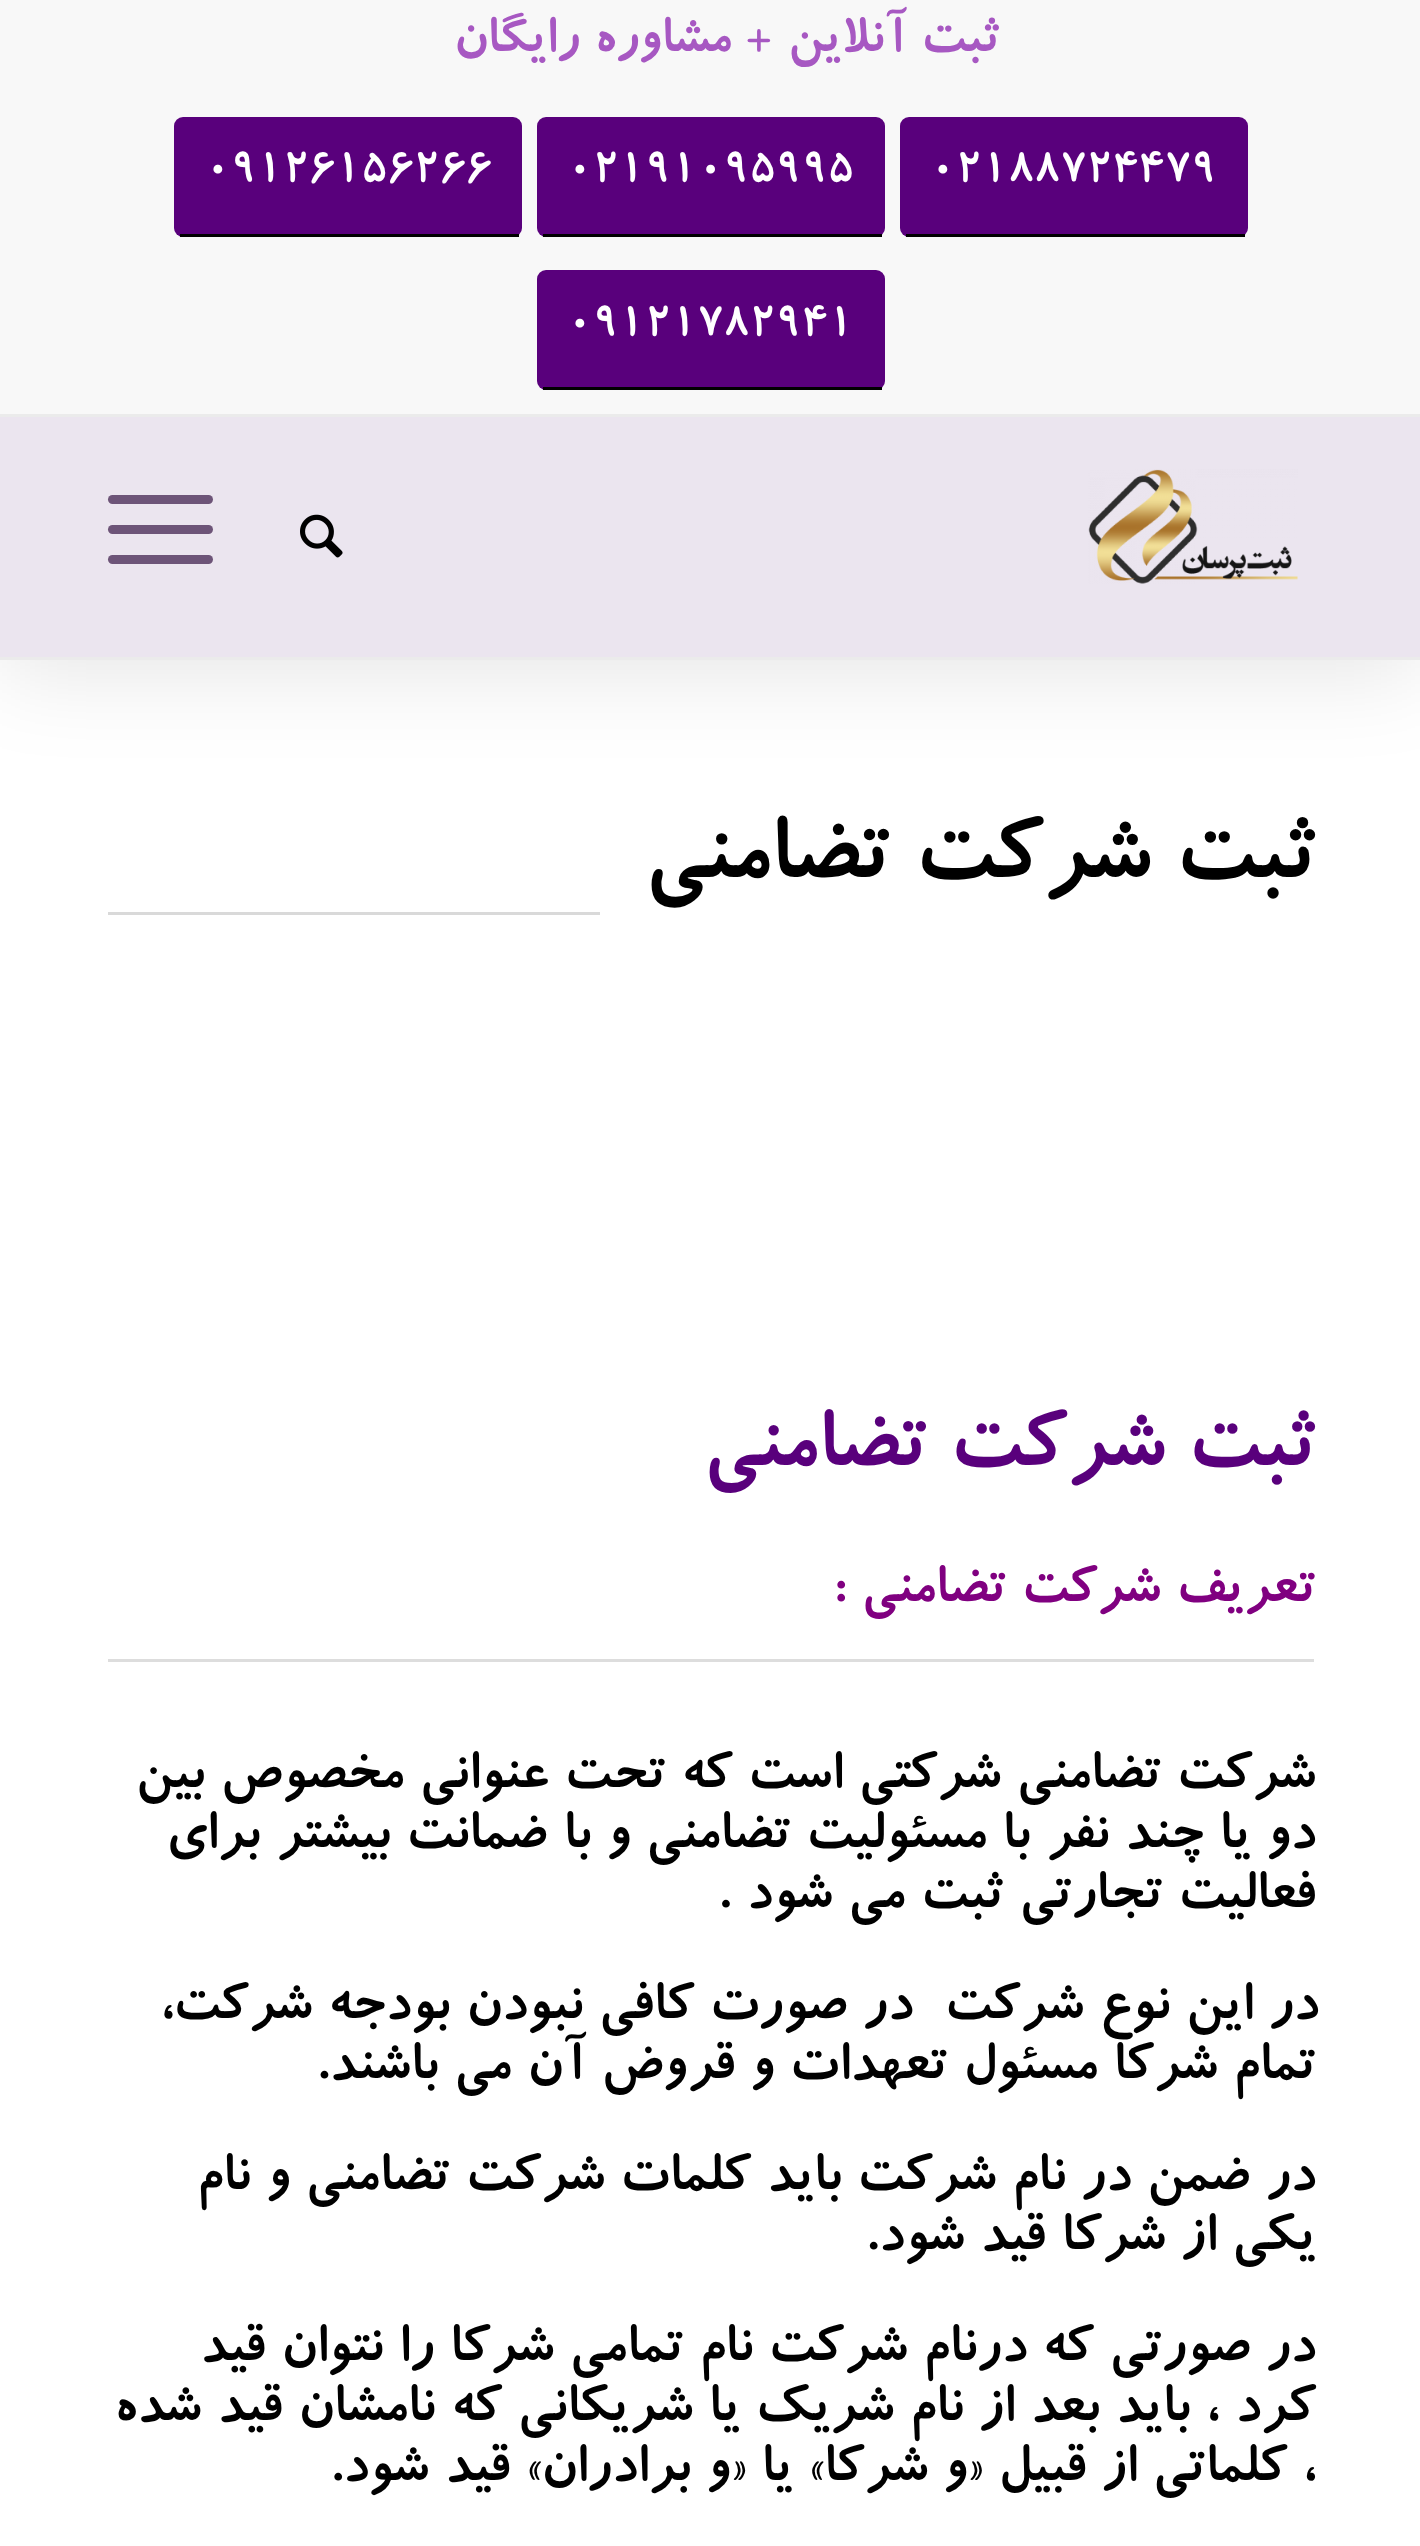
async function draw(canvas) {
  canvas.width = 1420;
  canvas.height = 2546;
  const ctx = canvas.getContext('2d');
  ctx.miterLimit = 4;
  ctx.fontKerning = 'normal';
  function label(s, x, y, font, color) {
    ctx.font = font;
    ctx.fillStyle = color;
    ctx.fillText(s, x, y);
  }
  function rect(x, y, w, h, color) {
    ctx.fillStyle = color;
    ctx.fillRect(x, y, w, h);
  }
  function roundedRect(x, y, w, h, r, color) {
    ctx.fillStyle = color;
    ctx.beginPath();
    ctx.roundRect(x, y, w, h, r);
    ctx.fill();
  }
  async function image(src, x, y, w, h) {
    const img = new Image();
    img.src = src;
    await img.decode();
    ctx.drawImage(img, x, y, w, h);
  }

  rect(0, 0, 1420, 2546, '#fff');
  ctx.fillStyle = '#0000001a';
  ctx.filter = 'blur(45px)';
  ctx.beginPath();
  ctx.rect(0, 426, 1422, 246);
  ctx.fill();
  ctx.filter = 'none';
  rect(0, 0, 1420, 414, '#f8f8f8');
  rect(0, 414, 1420, 3, '#ebebeb');
  ctx.wordSpacing = '3px';
  ctx.direction = 'rtl';
  label('ثبت آنلاین + مشاوره رایگان', 999, 51, 'bold 57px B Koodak', '#a758c2');
  roundedRect(900, 117, 348, 120, 9, '#59007c');
  rect(906, 234, 339, 3, '#000');
  ctx.wordSpacing = '0px';
  ctx.direction = 'ltr';
  label('02188724479', 930, 180, 'bold 48px B Koodak', '#fff');
  roundedRect(537, 117, 348, 120, 9, '#59007c');
  rect(543, 234, 339, 3, '#000');
  label('02191095995', 567, 180, 'bold 48px B Koodak', '#fff');
  roundedRect(174, 117, 348, 120, 9, '#59007c');
  rect(180, 234, 339, 3, '#000');
  label('09126156266', 205, 180, 'bold 48px B Koodak', '#fff');
  roundedRect(537, 270, 348, 120, 9, '#59007c');
  rect(543, 387, 339, 3, '#000');
  label('09121782941', 567, 334, 'bold 48px B Koodak', '#fff');
  rect(0, 417, 1420, 240, '#ebe5ef');
  rect(0, 657, 1420, 3, '#ebebeb');
  await image('assets/img1.png', 1088, 469, 210, 115);
  await image('assets/img2.png', 300, 514, 43, 44);
  roundedRect(108, 525, 105, 9, 4.5, '#6d5478');
  roundedRect(108, 495, 105, 9, 4.5, '#6d5478');
  roundedRect(108, 555, 105, 9, 4.5, '#6d5478');
  ctx.wordSpacing = '3px';
  ctx.direction = 'rtl';
  label('ثبت شرکت تضامنی', 1315, 877, 'bold 102px B Koodak', '#000');
  rect(108, 912, 492, 3, '#d9d9d9');
  label('ثبت شرکت تضامنی', 1315, 1465, 'bold 93px B Koodak', '#59007c');
  label('تعریف شرکت تضامنی :', 1315, 1601, 'bold 60px B Koodak', '#800080');
  rect(108, 1659, 1206, 3, '#ddd');
  label('شرکت تضامنی شرکتی است که تحت عنوانی مخصوص بین', 1315, 1787, 'bold 60px B Koodak', '#000');
  label('دو یا چند نفر با مسئولیت تضامنی و با ضمانت بیشتر برای', 1315, 1847, 'bold 60px B Koodak', '#000');
  label('فعالیت تجارتی ثبت می شود .', 1315, 1907, 'bold 60px B Koodak', '#000');
  ctx.wordSpacing = '3.25px';
  label('در این نوع شرکت  در صورت کافی نبودن بودجه شرکت،', 1318, 2018, 'bold 60px B Koodak', '#000');
  ctx.wordSpacing = '3px';
  label('تمام شرکا مسئول تعهدات و قروض آن می باشند.', 1315, 2078, 'bold 60px B Koodak', '#000');
  label('در ضمن در نام شرکت باید کلمات شرکت تضامنی و نام', 1315, 2189, 'bold 60px B Koodak', '#000');
  label('یکی از شرکا قید شود.', 1315, 2249, 'bold 60px B Koodak', '#000');
  label('در صورتی که درنام شرکت نام تمامی شرکا را نتوان قید', 1315, 2360, 'bold 60px B Koodak', '#000');
  label('کرد ، باید بعد از نام شریک یا شریکانی که نامشان قید شده', 1315, 2420, 'bold 60px B Koodak', '#000');
  label('، کلماتی از قبیل «و شرکا» یا «و برادران» قید شود.', 1315, 2480, 'bold 60px B Koodak', '#000');
}

draw(document.querySelector('canvas'));
